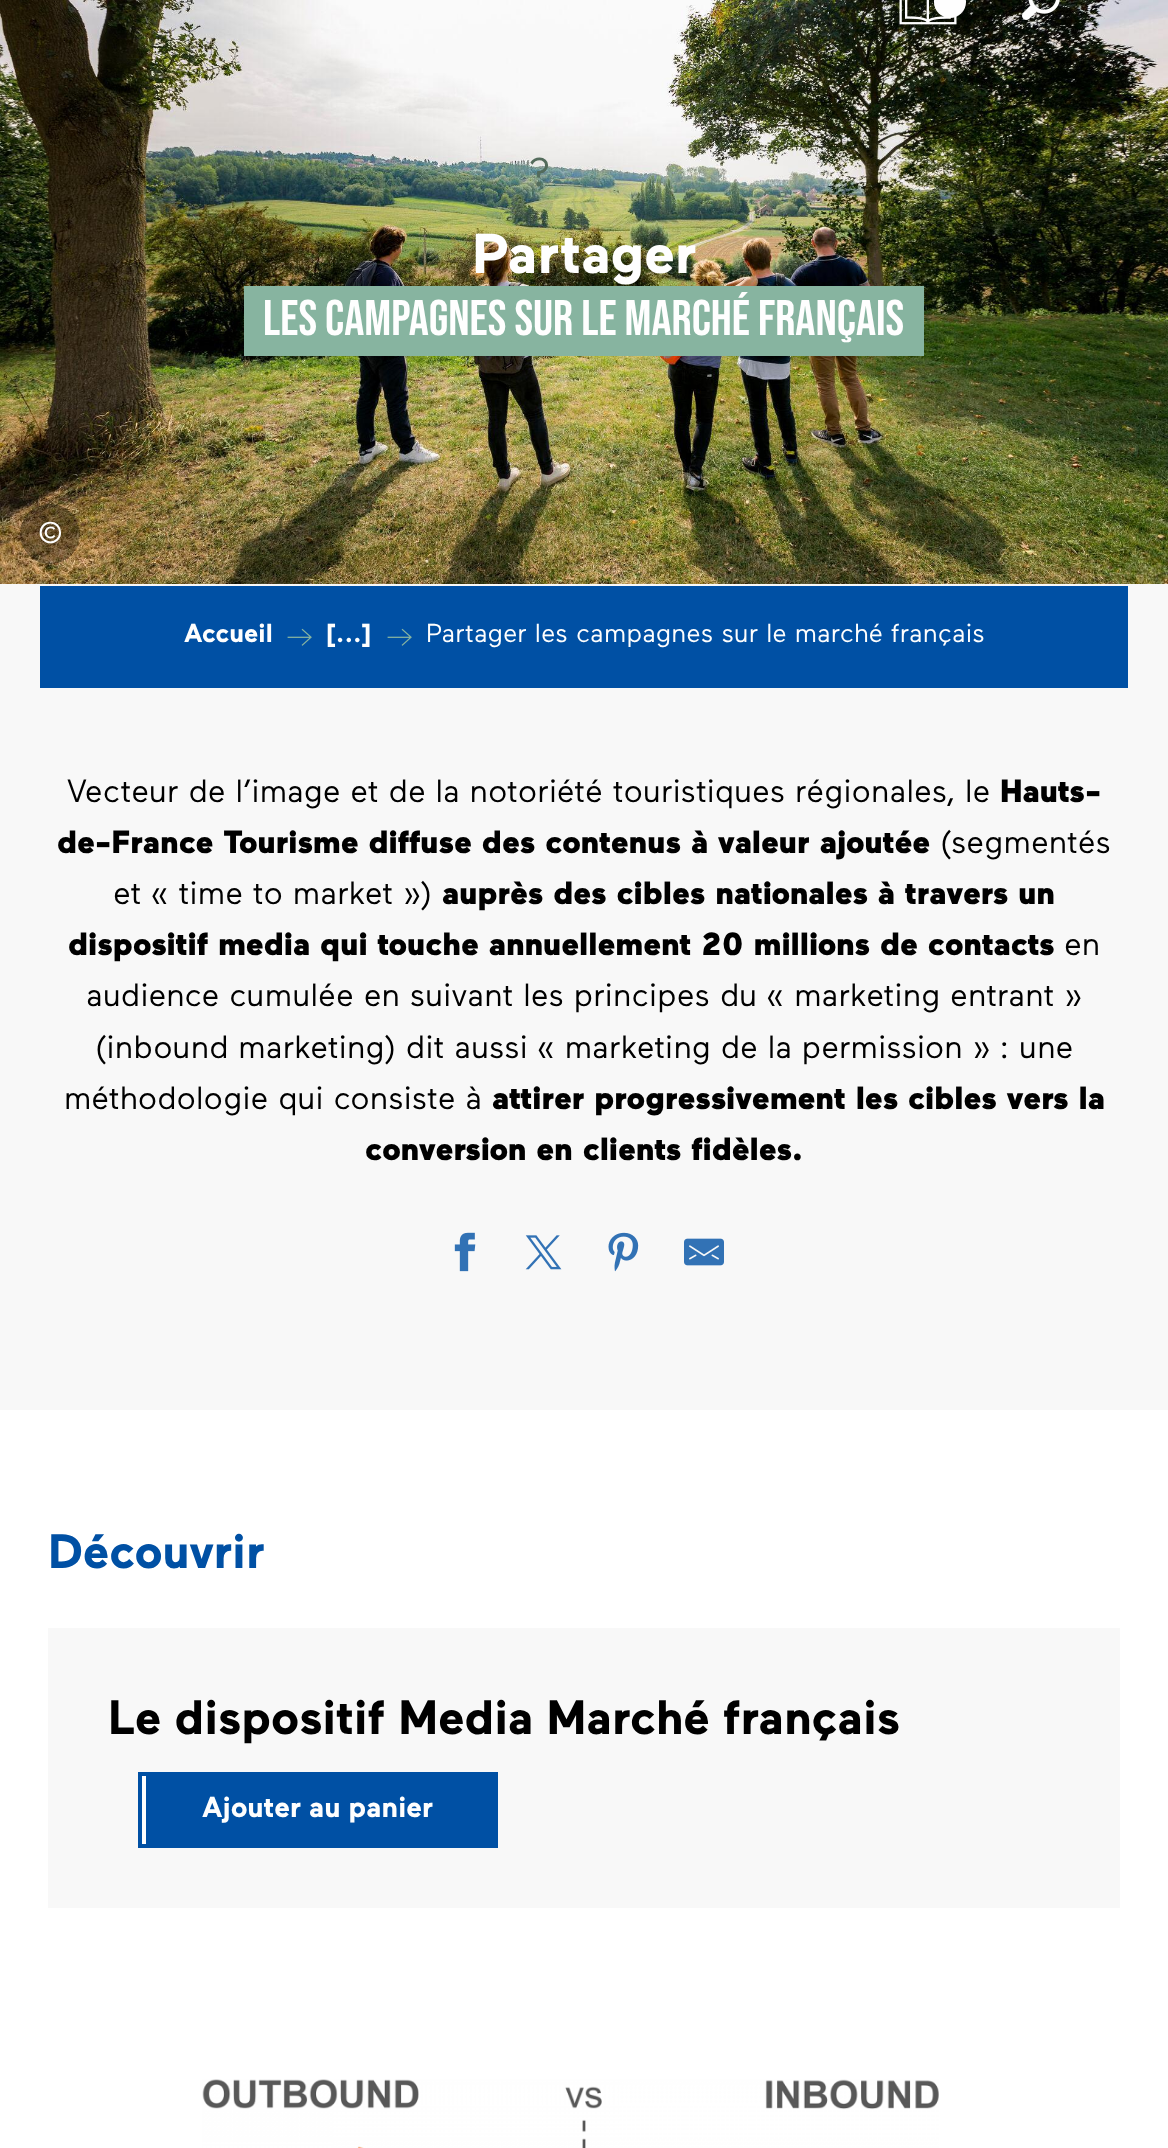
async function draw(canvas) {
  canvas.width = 1168;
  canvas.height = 2148;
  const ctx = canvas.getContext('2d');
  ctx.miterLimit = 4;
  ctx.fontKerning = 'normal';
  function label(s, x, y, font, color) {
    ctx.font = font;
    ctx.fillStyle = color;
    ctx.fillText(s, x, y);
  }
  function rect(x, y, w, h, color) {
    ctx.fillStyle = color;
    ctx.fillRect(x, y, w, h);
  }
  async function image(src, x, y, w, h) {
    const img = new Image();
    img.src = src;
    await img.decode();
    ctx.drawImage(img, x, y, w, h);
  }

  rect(0, 0, 1168, 2148, '#fff');
  await image('assets/img3.png', 0, 0, 1168, 584);
  label('?', 529, 186, '40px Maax', '#536b5b');
  await image('assets/img1.png', 899, 0, 58, 25);
  ctx.fillStyle = '#fefefe';
  ctx.beginPath();
  ctx.arc(950, 2, 16, 0, 2 * Math.PI);
  ctx.fill();
  await image('assets/img2.png', 1022, 0, 38, 20);
  label('Partager', 472, 273, 'bold 56px Maax', '#fefefe');
  rect(244, 286, 680, 70, '#87b4a0');
  label('les campagnes sur le marché français', 263, 335, '50px Bebas Neue', '#fefefe');
  ctx.fillStyle = '#0000004d';
  ctx.beginPath();
  ctx.arc(50, 534, 30, 0, 2 * Math.PI);
  ctx.fill();
  label('©', 38, 543, '30px Maax', '#fefefe');
  rect(0, 584, 1168, 826, '#f8f8f8');
  rect(40, 586, 1088, 102, '#0050a4');
  label('Accueil', 184, 642, 'bold 26px Maax', '#fefefe');
  await image('assets/img4.png', 287, 628, 25, 18);
  label('[...]', 326, 642, 'bold 26px Maax', '#fefefe');
  await image('assets/img4.png', 387, 628, 25, 18);
  label('Partager les campagnes sur le marché français', 426, 642, '26px Maax', '#fefefe');
  label('Vecteur de l’image et de la notoriété touristiques régionales, le', 67, 802, '32px Maax', '#000');
  label('Hauts-', 1000, 802, '900 32px Maax', '#000');
  label('de-France Tourisme diffuse des contenus à valeur ajoutée', 57, 853, '900 32px Maax', '#000');
  label('(segmentés', 940, 853, '32px Maax', '#000');
  label('et « time to market »)', 113, 904, '32px Maax', '#000');
  label('auprès des cibles nationales à travers un', 442, 904, '900 32px Maax', '#000');
  label('dispositif media qui touche annuellement 20 millions de contacts', 68, 955, '900 32px Maax', '#000');
  label('en', 1064, 955, '32px Maax', '#000');
  label('audience cumulée en suivant les principes du « marketing entrant »', 86, 1006, '32px Maax', '#000');
  label('(inbound marketing) dit aussi « marketing de la permission » : une', 95, 1058, '32px Maax', '#000');
  label('méthodologie qui consiste à', 64, 1109, '32px Maax', '#000');
  label('attirer progressivement les cibles vers la', 492, 1109, '900 32px Maax', '#000');
  label('conversion en clients fidèles.', 365, 1160, '900 32px Maax', '#000');
  await image('assets/img5.png', 454, 1232, 22, 40);
  await image('assets/img6.png', 525, 1235, 37, 35);
  await image('assets/img7.png', 608, 1232, 31, 40);
  await image('assets/img8.png', 684, 1238, 40, 28);
  label('Découvrir', 48, 1568, 'bold 48px Maax', '#0050a4');
  rect(48, 1628, 1072, 280, '#f8f8f8');
  label('Le dispositif Media Marché français', 108, 1734, 'bold 48px Maax', '#000');
  rect(138, 1772, 360, 76, '#0050a4');
  rect(142, 1776, 4, 68, '#fefefe');
  label('Ajouter au panier', 202, 1817, 'bold 28.75px Maax', '#fefefe');
  await image('assets/img9.png', 202, 2079, 737, 69);
}

draw(document.querySelector('canvas'));
